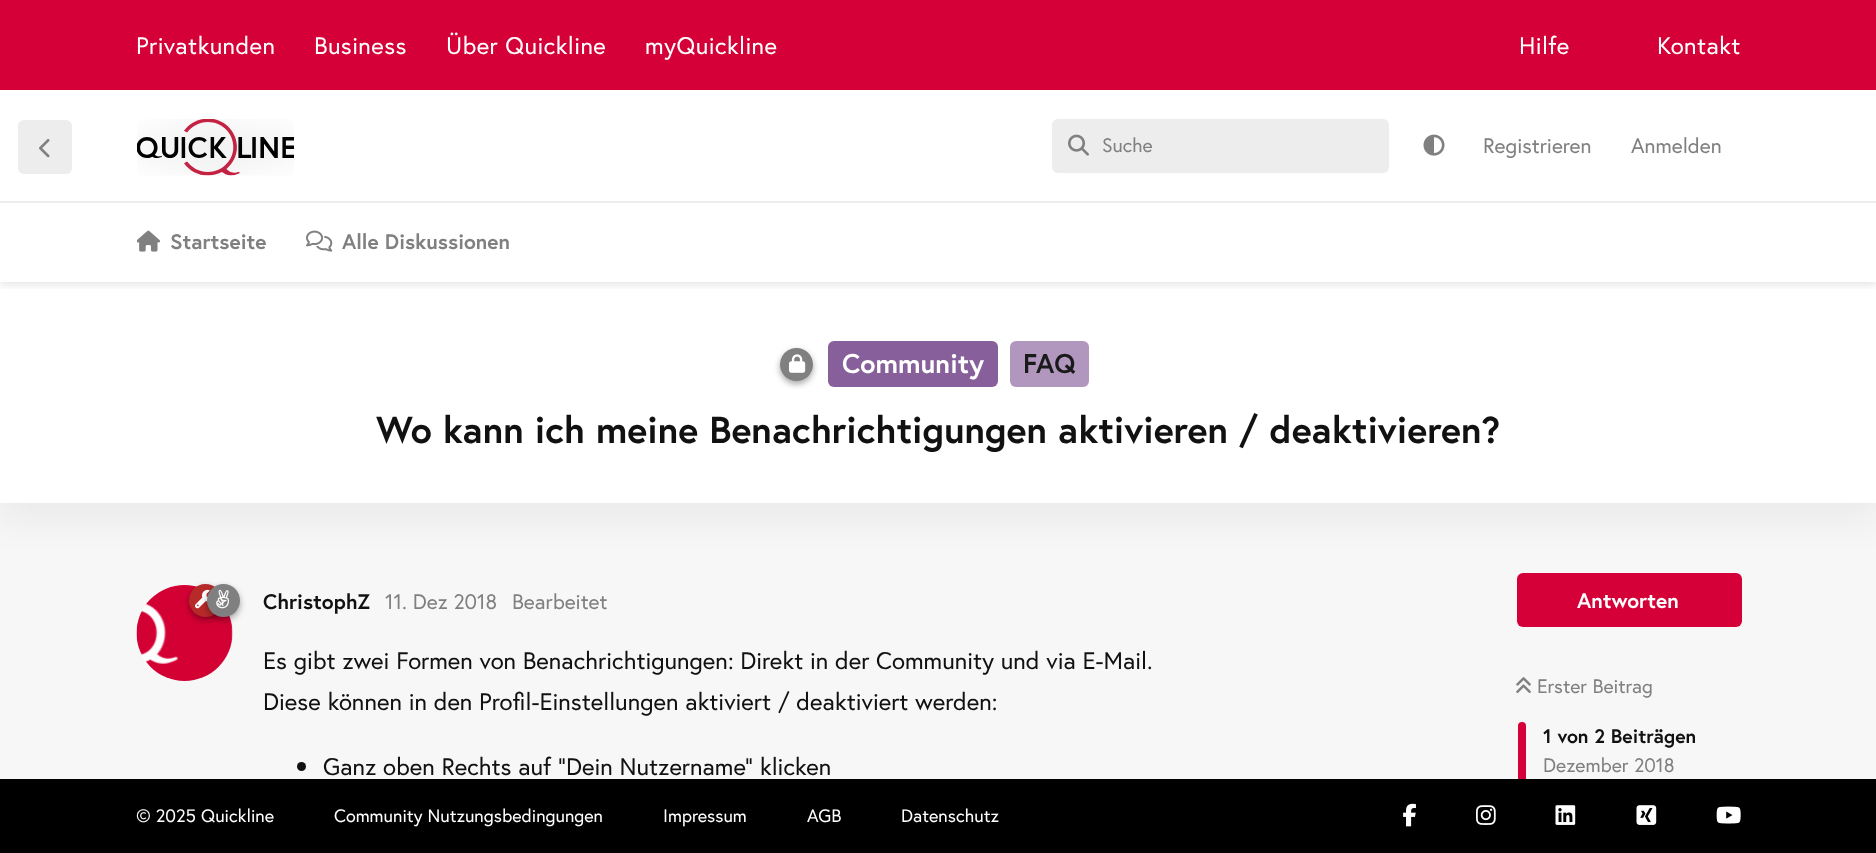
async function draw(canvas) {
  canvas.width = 1876;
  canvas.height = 853;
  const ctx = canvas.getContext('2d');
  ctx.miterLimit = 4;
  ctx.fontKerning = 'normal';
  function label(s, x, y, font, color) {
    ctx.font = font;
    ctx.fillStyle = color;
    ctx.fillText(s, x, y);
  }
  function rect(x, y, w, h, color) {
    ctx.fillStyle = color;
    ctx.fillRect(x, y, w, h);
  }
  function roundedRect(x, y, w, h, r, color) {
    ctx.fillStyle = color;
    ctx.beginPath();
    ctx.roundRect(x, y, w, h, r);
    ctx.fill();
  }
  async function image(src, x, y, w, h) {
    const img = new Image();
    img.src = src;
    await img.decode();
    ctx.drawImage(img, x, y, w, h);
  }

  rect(0, 0, 1876, 853, '#f7f7f7');
  rect(0, 90, 1876, 111, '#fff');
  roundedRect(18, 120, 54, 54, 6, '#ededed');
  await image('assets/img1.png', 39, 139, 11, 19);
  ctx.fillStyle = '#1111110f';
  ctx.filter = 'blur(18px)';
  ctx.beginPath();
  ctx.rect(-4, 287, 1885, 232);
  ctx.fill();
  ctx.filter = 'none';
  rect(0, 203, 1876, 300, '#fff');
  await image('assets/img2.png', 137, 230, 24, 22);
  await image('assets/img3.png', 306, 230, 27, 22);
  rect(0, 201, 1876, 2, '#ededed');
  await image('assets/img4.png', 137, 119, 157, 57);
  roundedRect(1052, 119, 337, 54, 6, '#ededed');
  await image('assets/img5.png', 1068, 134, 21, 22);
  await image('assets/img6.png', 1423, 134, 22, 22);
  ctx.save();
  ctx.beginPath();
  ctx.rect(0, 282, 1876, 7);
  ctx.clip();
  ctx.fillStyle = '#0000001a';
  ctx.filter = 'blur(4.5px)';
  ctx.beginPath();
  ctx.rect(0, 5, 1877, 280);
  ctx.fill();
  ctx.filter = 'none';
  ctx.restore();
  rect(0, 0, 1876, 90, '#d40037');
  ctx.letterSpacing = '0.4px';
  label('Privatkunden', 136, 54, '24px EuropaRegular', '#fff');
  label('Business', 314, 54, '24px EuropaRegular', '#fff');
  label('Über Quickline', 446, 54, '24px EuropaRegular', '#fff');
  label('myQuickline', 645, 54, '24px EuropaRegular', '#fff');
  label('Hilfe', 1519, 54, '24px EuropaRegular', '#fff');
  label('Kontakt', 1657, 54, '24px EuropaRegular', '#fff');
  ctx.letterSpacing = '0px';
  label('Startseite', 170, 249, 'bold 21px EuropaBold', '#808080');
  label('Alle Diskussionen', 342, 249, 'bold 21px EuropaBold', '#808080');
  label('Suche', 1102, 152, '19.5px EuropaRegular', '#808080');
  label('Registrieren', 1483, 153, '21px EuropaRegular', '#808080');
  label('Anmelden', 1631, 153, '21px EuropaRegular', '#808080');
  ctx.fillStyle = '#00000059';
  ctx.filter = 'blur(3px)';
  ctx.beginPath();
  ctx.roundRect(780, 351, 33, 33, 16.5);
  ctx.fill();
  ctx.filter = 'none';
  ctx.fillStyle = '#808080';
  ctx.beginPath();
  ctx.arc(796.5, 364.5, 16.5, 0, 2 * Math.PI);
  ctx.fill();
  await image('assets/img7.png', 789, 354, 17, 19);
  roundedRect(828, 341, 170, 46, 6, '#875f9a');
  label('Community', 842, 373, 'bold 27px EuropaBold', '#fff');
  roundedRect(1010, 341, 79, 46, 6, '#b197bd');
  label('FAQ', 1023, 373, 'bold 27px EuropaBold', '#1a1a1a');
  label('Wo kann ich meine Benachrichtigungen aktivieren / deaktivieren?', 376, 443, 'bold 37.5px EuropaBold', '#111');
  ctx.fillStyle = '#ededed';
  ctx.beginPath();
  ctx.arc(185, 633, 48, 0, 2 * Math.PI);
  ctx.fill();
  await image('assets/img10.png', 136, 585, 97, 96);
  ctx.fillStyle = '#00000059';
  ctx.filter = 'blur(3px)';
  ctx.beginPath();
  ctx.roundRect(189, 587, 33, 33, 16.5);
  ctx.fill();
  ctx.filter = 'none';
  ctx.fillStyle = '#b72a2a';
  ctx.beginPath();
  ctx.arc(205.5, 600.5, 16.5, 0, 2 * Math.PI);
  ctx.fill();
  await image('assets/img8.png', 195, 589, 15, 20);
  ctx.fillStyle = '#00000059';
  ctx.filter = 'blur(3px)';
  ctx.beginPath();
  ctx.roundRect(207, 587, 33, 33, 16.5);
  ctx.fill();
  ctx.filter = 'none';
  ctx.fillStyle = '#808080';
  ctx.beginPath();
  ctx.arc(223.5, 600.5, 16.5, 0, 2 * Math.PI);
  ctx.fill();
  await image('assets/img9.png', 216, 589, 13, 20);
  label('ChristophZ', 263, 609, 'bold 21px EuropaBold', '#111');
  label('11. Dez 2018', 385, 609, '21px EuropaRegular', '#808080');
  label('Bearbeitet', 512, 609, '21px EuropaRegular', '#808080');
  label('Es gibt zwei Formen von Benachrichtigungen: Direkt in der Community und via E-Mail.', 263, 669, '24px EuropaRegular', '#111');
  label('Diese können in den Profil-Einstellungen aktiviert / deaktiviert werden:', 263, 710, '24px EuropaRegular', '#111');
  ctx.beginPath();
  ctx.arc(301.5, 766.5, 4.5, 0, 2 * Math.PI);
  ctx.fill();
  label('Ganz oben Rechts auf "Dein Nutzername" klicken', 323, 775, '24px EuropaRegular', '#111');
  roundedRect(1517, 573, 225, 54, 6, '#d40037');
  label('Antworten', 1577, 608, 'bold 21px EuropaBold', '#fff');
  await image('assets/img11.png', 1516, 677, 15, 16);
  label('Erster Beitrag', 1537, 693, '19.5px EuropaRegular', '#808080');
  roundedRect(1518, 722, 8, 60, 4, '#d40037');
  label('1 von 2 Beiträgen', 1543, 743, 'bold 19.5px EuropaBold', '#111');
  label('Dezember 2018', 1543, 772, '19.5px EuropaRegular', '#808080');
  rect(0, 779, 1876, 74, '#000');
  label('© 2025 Quickline', 136, 822, '18px EuropaRegular', '#fff');
  label('Community Nutzungsbedingungen', 334, 822, '18px EuropaRegular', '#fff');
  label('Impressum', 663, 822, '18px EuropaRegular', '#fff');
  label('AGB', 807, 822, '18px EuropaRegular', '#fff');
  label('Datenschutz', 901, 822, '18px EuropaRegular', '#fff');
  await image('assets/img12.png', 1403, 803, 13, 24);
  await image('assets/img13.png', 1476, 805, 20, 20);
  await image('assets/img14.png', 1555, 805, 21, 20);
  await image('assets/img15.png', 1636, 805, 21, 20);
  await image('assets/img16.png', 1716, 806, 25, 18);
}

draw(document.querySelector('canvas'));
